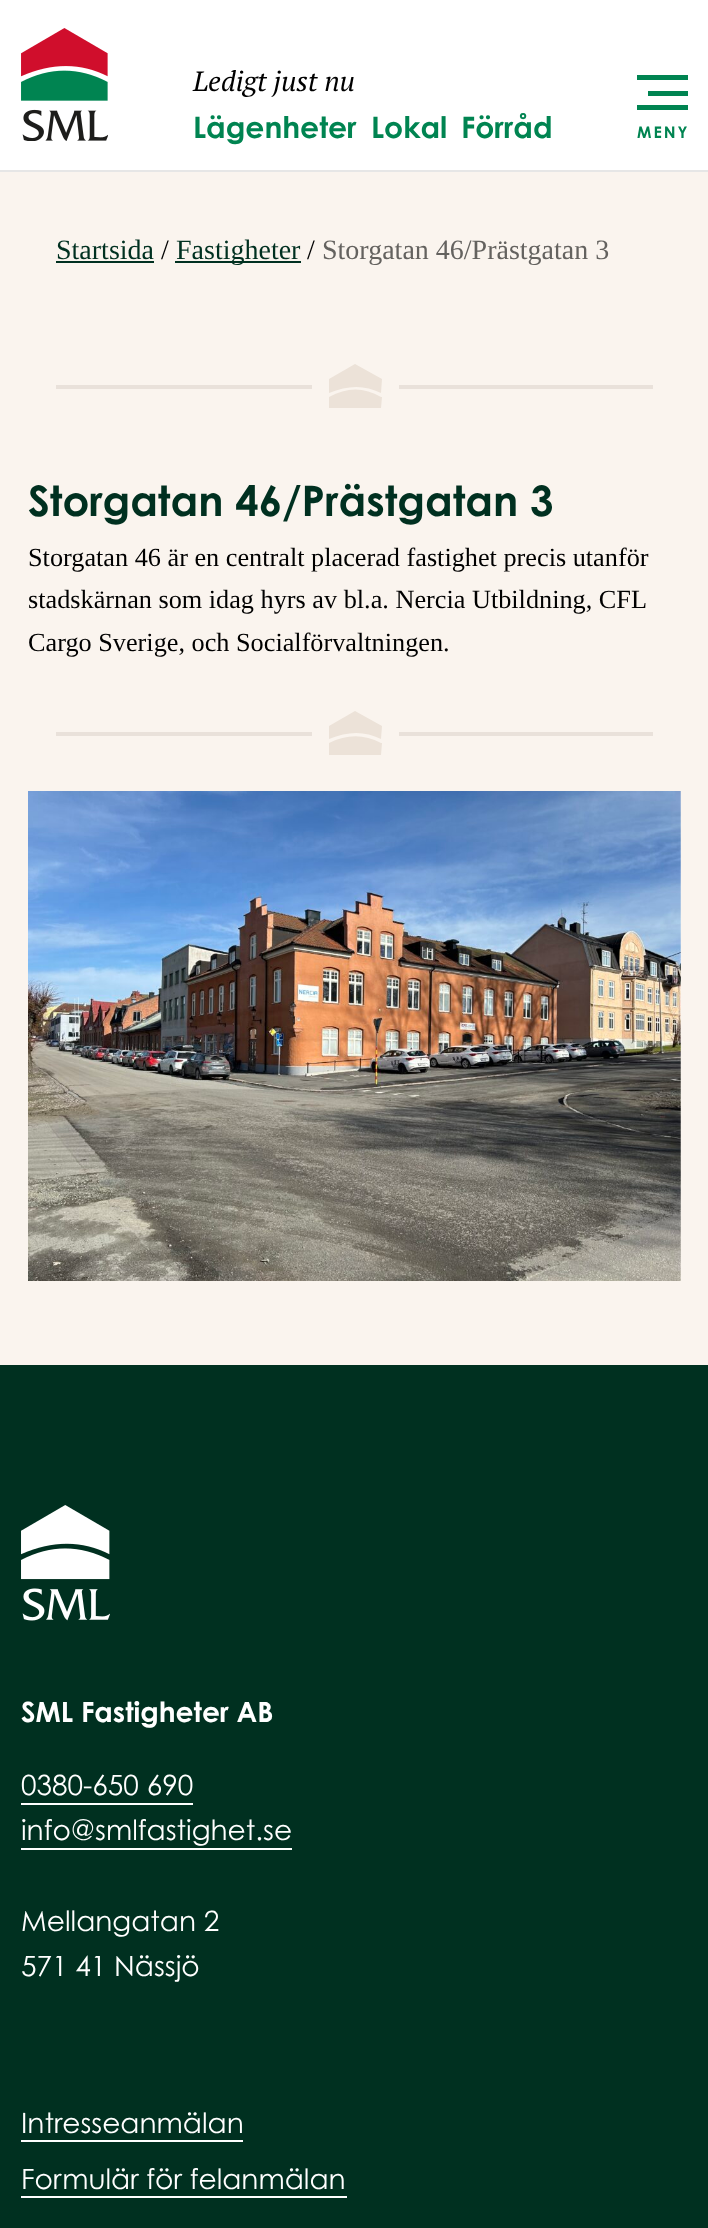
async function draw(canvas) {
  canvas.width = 708;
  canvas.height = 2228;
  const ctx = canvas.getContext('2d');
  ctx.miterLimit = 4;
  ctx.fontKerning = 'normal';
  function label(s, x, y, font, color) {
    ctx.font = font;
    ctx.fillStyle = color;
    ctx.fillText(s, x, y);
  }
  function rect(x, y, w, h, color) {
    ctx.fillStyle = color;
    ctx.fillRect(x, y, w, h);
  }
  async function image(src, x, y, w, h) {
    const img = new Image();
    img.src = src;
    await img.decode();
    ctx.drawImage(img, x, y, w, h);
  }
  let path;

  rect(0, 0, 708, 2228, '#faf4ee');
  rect(0, 0, 708, 170, '#fff');
  rect(0, 170, 708, 2, '#e6e6e6');
  await image('assets/img1.png', 21, 28, 87, 113);
  label('Ledigt just nu', 193, 91, 'italic 28px PT Serif', '#000');
  label('Lägenheter', 193, 138, 'bold 29.75px Century Gothic', '#008451');
  label('Lokal', 371, 138, 'bold 29.75px Century Gothic', '#008451');
  label('Förråd', 461, 138, 'bold 29.75px Century Gothic', '#008451');
  rect(637, 75, 51, 5, '#008451');
  rect(648, 91, 40, 5, '#008451');
  rect(637, 105, 51, 5, '#008451');
  ctx.letterSpacing = '2px';
  label('MENY', 637, 138, 'bold 16px Century Gothic', '#008451');
  ctx.letterSpacing = '0px';
  label('Startsida', 56, 259, '28px Liberation Serif', '#003020');
  rect(56, 261, 98, 2, '#003020');
  label('/', 161, 259, '28px Liberation Serif', '#000');
  rect(175, 261, 126, 2, '#003020');
  label('Fastigheter', 176, 259, '28px Liberation Serif', '#003020');
  label('/', 307, 259, '28px Liberation Serif', '#000');
  label('Storgatan 46/Prästgatan 3', 322, 259, '28px Liberation Serif', '#64625f');
  rect(56, 385, 597, 4, '#e9e1da');
  rect(312, 385, 87, 4, '#faf4ee');
  ctx.fillStyle = '#ece2d8';
  path = new Path2D('M355 364L382 379L381 393C365 385 348 385 329 393V379Z');
  ctx.fill(path);
  path = new Path2D('M382 397L381 408H329V397C347 387 364 387 381 397');
  ctx.fill(path);
  label('Storgatan 46/Prästgatan 3', 28, 516, 'bold 42px Century Gothic', '#003020');
  label('Storgatan 46 är en centralt placerad fastighet precis utanför', 28, 566, '26.25px Liberation Serif', '#000');
  label('stadskärnan som idag hyrs av bl.a. Nercia Utbildning, CFL', 28, 608, '26.25px Liberation Serif', '#000');
  label('Cargo Sverige, och Socialförvaltningen.', 28, 651, '26.25px Liberation Serif', '#000');
  rect(56, 732, 597, 4, '#e9e1da');
  rect(312, 732, 87, 4, '#faf4ee');
  ctx.fillStyle = '#ece2d8';
  path = new Path2D('M355 711L382 726L381 739C365 731 348 731 329 739V726Z');
  ctx.fill(path);
  path = new Path2D('M382 743L381 755H329V743C347 734 364 734 381 743');
  ctx.fill(path);
  await image('assets/img2.png', 28, 791, 653, 490);
  rect(0, 1365, 708, 863, '#003020');
  await image('assets/img3.png', 21, 1505, 89, 116);
  label('SML Fastigheter AB', 21, 1722, 'bold 28px Century Gothic', '#fff');
  label('0380-650 690', 21, 1795, '28px Century Gothic', '#fff');
  rect(21, 1803, 172, 2, '#fff');
  label('info@smlfastighet.se', 21, 1840, '28px Century Gothic', '#fff');
  rect(21, 1848, 271, 2, '#fff');
  label('Mellangatan 2', 21, 1931, '28px Century Gothic', '#fff');
  label('571 41 Nässjö', 21, 1976, '28px Century Gothic', '#fff');
  label('Intresseanmälan', 21, 2133, '28px Century Gothic', '#fff');
  rect(21, 2140, 222, 2, '#fff');
  label('Formulär för felanmälan', 21, 2189, '28px Century Gothic', '#fff');
  rect(21, 2196, 326, 2, '#fff');
}

draw(document.querySelector('canvas'));
